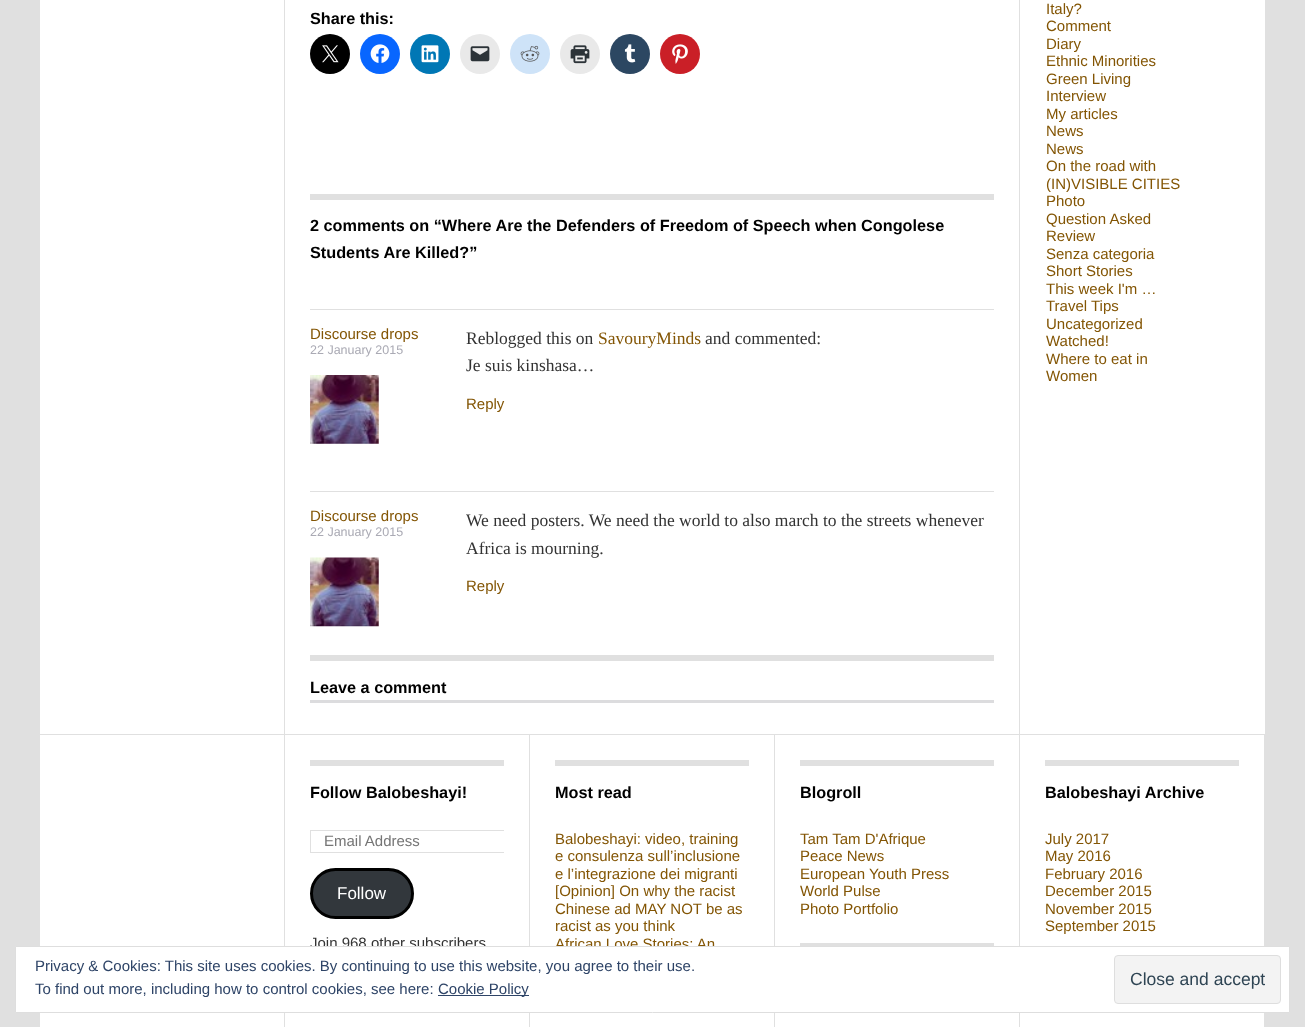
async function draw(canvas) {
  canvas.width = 1305;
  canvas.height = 1027;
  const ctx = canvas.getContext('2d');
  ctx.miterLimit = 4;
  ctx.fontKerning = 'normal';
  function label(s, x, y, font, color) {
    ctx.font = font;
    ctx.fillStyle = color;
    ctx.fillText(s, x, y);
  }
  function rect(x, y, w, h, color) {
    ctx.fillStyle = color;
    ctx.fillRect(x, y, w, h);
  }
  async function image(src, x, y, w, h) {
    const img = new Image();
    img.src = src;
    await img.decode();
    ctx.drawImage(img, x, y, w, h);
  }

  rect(0, 0, 1305, 1027, '#e0e0e0');
  rect(40, 0, 1225, 1027, '#fff');
  rect(1019, 0, 1, 734, '#e0e0e0');
  rect(284, 0, 1, 734, '#e0e0e0');
  label('Share this:', 310, 24, 'bold 16.25px Liberation Sans', '#000');
  ctx.beginPath();
  ctx.arc(330, 54, 20, 0, 2 * Math.PI);
  ctx.fill();
  await image('assets/img1.png', 322, 45, 17, 18);
  ctx.fillStyle = '#0866ff';
  ctx.beginPath();
  ctx.arc(380, 54, 20, 0, 2 * Math.PI);
  ctx.fill();
  await image('assets/img2.png', 370, 44, 20, 19);
  ctx.fillStyle = '#0077b5';
  ctx.beginPath();
  ctx.arc(430, 54, 20, 0, 2 * Math.PI);
  ctx.fill();
  await image('assets/img3.png', 421, 45, 18, 18);
  ctx.fillStyle = '#e9e9e9';
  ctx.beginPath();
  ctx.arc(480, 54, 20, 0, 2 * Math.PI);
  ctx.fill();
  await image('assets/img4.png', 470, 46, 20, 16);
  ctx.fillStyle = '#cee3f8';
  ctx.beginPath();
  ctx.arc(530, 54, 20, 0, 2 * Math.PI);
  ctx.fill();
  await image('assets/img5.png', 520, 45, 20, 17);
  ctx.fillStyle = '#e9e9e9';
  ctx.beginPath();
  ctx.arc(580, 54, 20, 0, 2 * Math.PI);
  ctx.fill();
  await image('assets/img6.png', 570, 45, 20, 19);
  ctx.fillStyle = '#2c4762';
  ctx.beginPath();
  ctx.arc(630, 54, 20, 0, 2 * Math.PI);
  ctx.fill();
  await image('assets/img7.png', 624, 44, 12, 19);
  ctx.fillStyle = '#ca1f27';
  ctx.beginPath();
  ctx.arc(680, 54, 20, 0, 2 * Math.PI);
  ctx.fill();
  await image('assets/img8.png', 672, 44, 16, 20);
  rect(310, 194, 684, 6, '#e0e0e0');
  label('2 comments on “Where Are the Defenders of Freedom of Speech when Congolese', 310, 231, 'bold 16.25px Liberation Sans', '#000');
  label('Students Are Killed?”', 310, 258, 'bold 16.25px Liberation Sans', '#000');
  rect(310, 309, 684, 1, '#e0e0e0');
  label('Discourse drops', 310, 339, '15px Liberation Sans', '#835504');
  label('22 January 2015', 310, 354, '12.5px Liberation Sans', '#aaaab4');
  await image('assets/img9.png', 310, 375, 69, 69);
  label('Reblogged this on', 466, 344, '17.5px Liberation Serif', '#333');
  label('SavouryMinds', 598, 344, '17.5px Liberation Serif', '#835504');
  label('and commented:', 705, 344, '17.5px Liberation Serif', '#333');
  label('Je suis kinshasa…', 466, 371, '17.5px Liberation Serif', '#333');
  label('Reply', 466, 409, '15px Liberation Sans', '#835504');
  rect(310, 491, 684, 1, '#e0e0e0');
  label('Discourse drops', 310, 521, '15px Liberation Sans', '#835504');
  label('22 January 2015', 310, 536, '12.5px Liberation Sans', '#aaaab4');
  await image('assets/img10.png', 310, 557, 69, 70);
  label('We need posters. We need the world to also march to the streets whenever', 466, 526, '17.5px Liberation Serif', '#333');
  label('Africa is mourning.', 466, 554, '17.5px Liberation Serif', '#333');
  label('Reply', 466, 591, '15px Liberation Sans', '#835504');
  rect(310, 655, 684, 6, '#e0e0e0');
  label('Leave a comment', 310, 693, 'bold 16.25px Liberation Sans', '#000');
  rect(310, 700, 684, 3, '#dcdcde');
  label('Italy?', 1046, 14, '15px Liberation Sans', '#835504');
  label('Comment', 1046, 31, '15px Liberation Sans', '#835504');
  label('Diary', 1046, 49, '15px Liberation Sans', '#835504');
  label('Ethnic Minorities', 1046, 66, '15px Liberation Sans', '#835504');
  label('Green Living', 1046, 84, '15px Liberation Sans', '#835504');
  label('Interview', 1046, 101, '15px Liberation Sans', '#835504');
  label('My articles', 1046, 119, '15px Liberation Sans', '#835504');
  label('News', 1046, 136, '15px Liberation Sans', '#835504');
  label('News', 1046, 154, '15px Liberation Sans', '#835504');
  label('On the road with', 1046, 171, '15px Liberation Sans', '#835504');
  label('(IN)VISIBLE CITIES', 1046, 189, '15px Liberation Sans', '#835504');
  label('Photo', 1046, 206, '15px Liberation Sans', '#835504');
  label('Question Asked', 1046, 224, '15px Liberation Sans', '#835504');
  label('Review', 1046, 241, '15px Liberation Sans', '#835504');
  label('Senza categoria', 1046, 259, '15px Liberation Sans', '#835504');
  label('Short Stories', 1046, 276, '15px Liberation Sans', '#835504');
  label('This week I\'m …', 1046, 294, '15px Liberation Sans', '#835504');
  label('Travel Tips', 1046, 311, '15px Liberation Sans', '#835504');
  label('Uncategorized', 1046, 329, '15px Liberation Sans', '#835504');
  label('Watched!', 1046, 346, '15px Liberation Sans', '#835504');
  label('Where to eat in', 1046, 364, '15px Liberation Sans', '#835504');
  label('Women', 1046, 381, '15px Liberation Sans', '#835504');
  rect(40, 734, 1225, 1, '#e0e0e0');
  rect(284, 735, 1, 292, '#e0e0e0');
  rect(529, 735, 1, 292, '#e0e0e0');
  rect(310, 760, 194, 6, '#e0e0e0');
  label('Follow Balobeshayi!', 310, 798, 'bold 16.25px Liberation Sans', '#000');
  ctx.save();
  ctx.beginPath();
  ctx.rect(310, 760, 194, 191);
  ctx.clip();
  ctx.strokeStyle = '#e0e0e0';
  ctx.strokeRect(310.5, 830.5, 210, 22);
  ctx.restore();
  label('Email Address', 324, 846, '15px Liberation Sans', '#757575');
  ctx.fillStyle = '#32373c';
  ctx.beginPath();
  ctx.roundRect(311.5, 869.5, 101, 48, 24);
  ctx.fill();
  ctx.strokeStyle = '#000';
  ctx.lineWidth = 3;
  ctx.stroke();
  label('Follow', 337, 899, '17px Liberation Sans', '#fff');
  label('Join 968 other subscribers', 310, 948, '15px Liberation Sans', '#333');
  rect(774, 735, 1, 292, '#e0e0e0');
  rect(555, 760, 194, 6, '#e0e0e0');
  label('Most read', 555, 798, 'bold 16.25px Liberation Sans', '#000');
  label('Balobeshayi: video, training', 555, 844, '15px Liberation Sans', '#835504');
  label('e consulenza sull’inclusione', 555, 861, '15px Liberation Sans', '#835504');
  label('e l’integrazione dei migranti', 555, 879, '15px Liberation Sans', '#835504');
  label('[Opinion] On why the racist', 555, 896, '15px Liberation Sans', '#835504');
  label('Chinese ad MAY NOT be as', 555, 914, '15px Liberation Sans', '#835504');
  label('racist as you think', 555, 931, '15px Liberation Sans', '#835504');
  label('African Love Stories: An', 555, 949, '15px Liberation Sans', '#835504');
  rect(1019, 735, 1, 292, '#e0e0e0');
  rect(800, 760, 194, 6, '#e0e0e0');
  label('Blogroll', 800, 798, 'bold 16.25px Liberation Sans', '#000');
  label('Tam Tam D\'Afrique', 800, 844, '15px Liberation Sans', '#835504');
  label('Peace News', 800, 861, '15px Liberation Sans', '#835504');
  label('European Youth Press', 800, 879, '15px Liberation Sans', '#835504');
  label('World Pulse', 800, 896, '15px Liberation Sans', '#835504');
  label('Photo Portfolio', 800, 914, '15px Liberation Sans', '#835504');
  rect(800, 943, 194, 3, '#e0e0e0');
  rect(1264, 735, 1, 292, '#e0e0e0');
  rect(1045, 760, 194, 6, '#e0e0e0');
  label('Balobeshayi Archive', 1045, 798, 'bold 16.25px Liberation Sans', '#000');
  label('July 2017', 1045, 844, '15px Liberation Sans', '#835504');
  label('May 2016', 1045, 861, '15px Liberation Sans', '#835504');
  label('February 2016', 1045, 879, '15px Liberation Sans', '#835504');
  label('December 2015', 1045, 896, '15px Liberation Sans', '#835504');
  label('November 2015', 1045, 914, '15px Liberation Sans', '#835504');
  label('September 2015', 1045, 931, '15px Liberation Sans', '#835504');
  ctx.fillStyle = '#fff';
  ctx.beginPath();
  ctx.rect(15.5, 946.5, 1274, 66);
  ctx.fill();
  ctx.strokeStyle = '#dedede';
  ctx.lineWidth = 1;
  ctx.stroke();
  label('Privacy & Cookies: This site uses cookies. By continuing to use this website, you agree to their use.', 35, 971, '15px Liberation Sans', '#2e4467');
  ctx.fillStyle = '#f3f3f3';
  ctx.beginPath();
  ctx.roundRect(1114.5, 955.5, 166, 48, 3.5);
  ctx.fill();
  ctx.stroke();
  label('Close and accept', 1130, 985, '17.5px Liberation Sans', '#2e4453');
  label('To find out more, including how to control cookies, see here:', 35, 994, '15px Liberation Sans', '#2e4467');
  rect(438, 995, 91, 1, '#2e4467');
  label('Cookie Policy', 438, 994, '15px Liberation Sans', '#2e4467');
}

draw(document.querySelector('canvas'));
